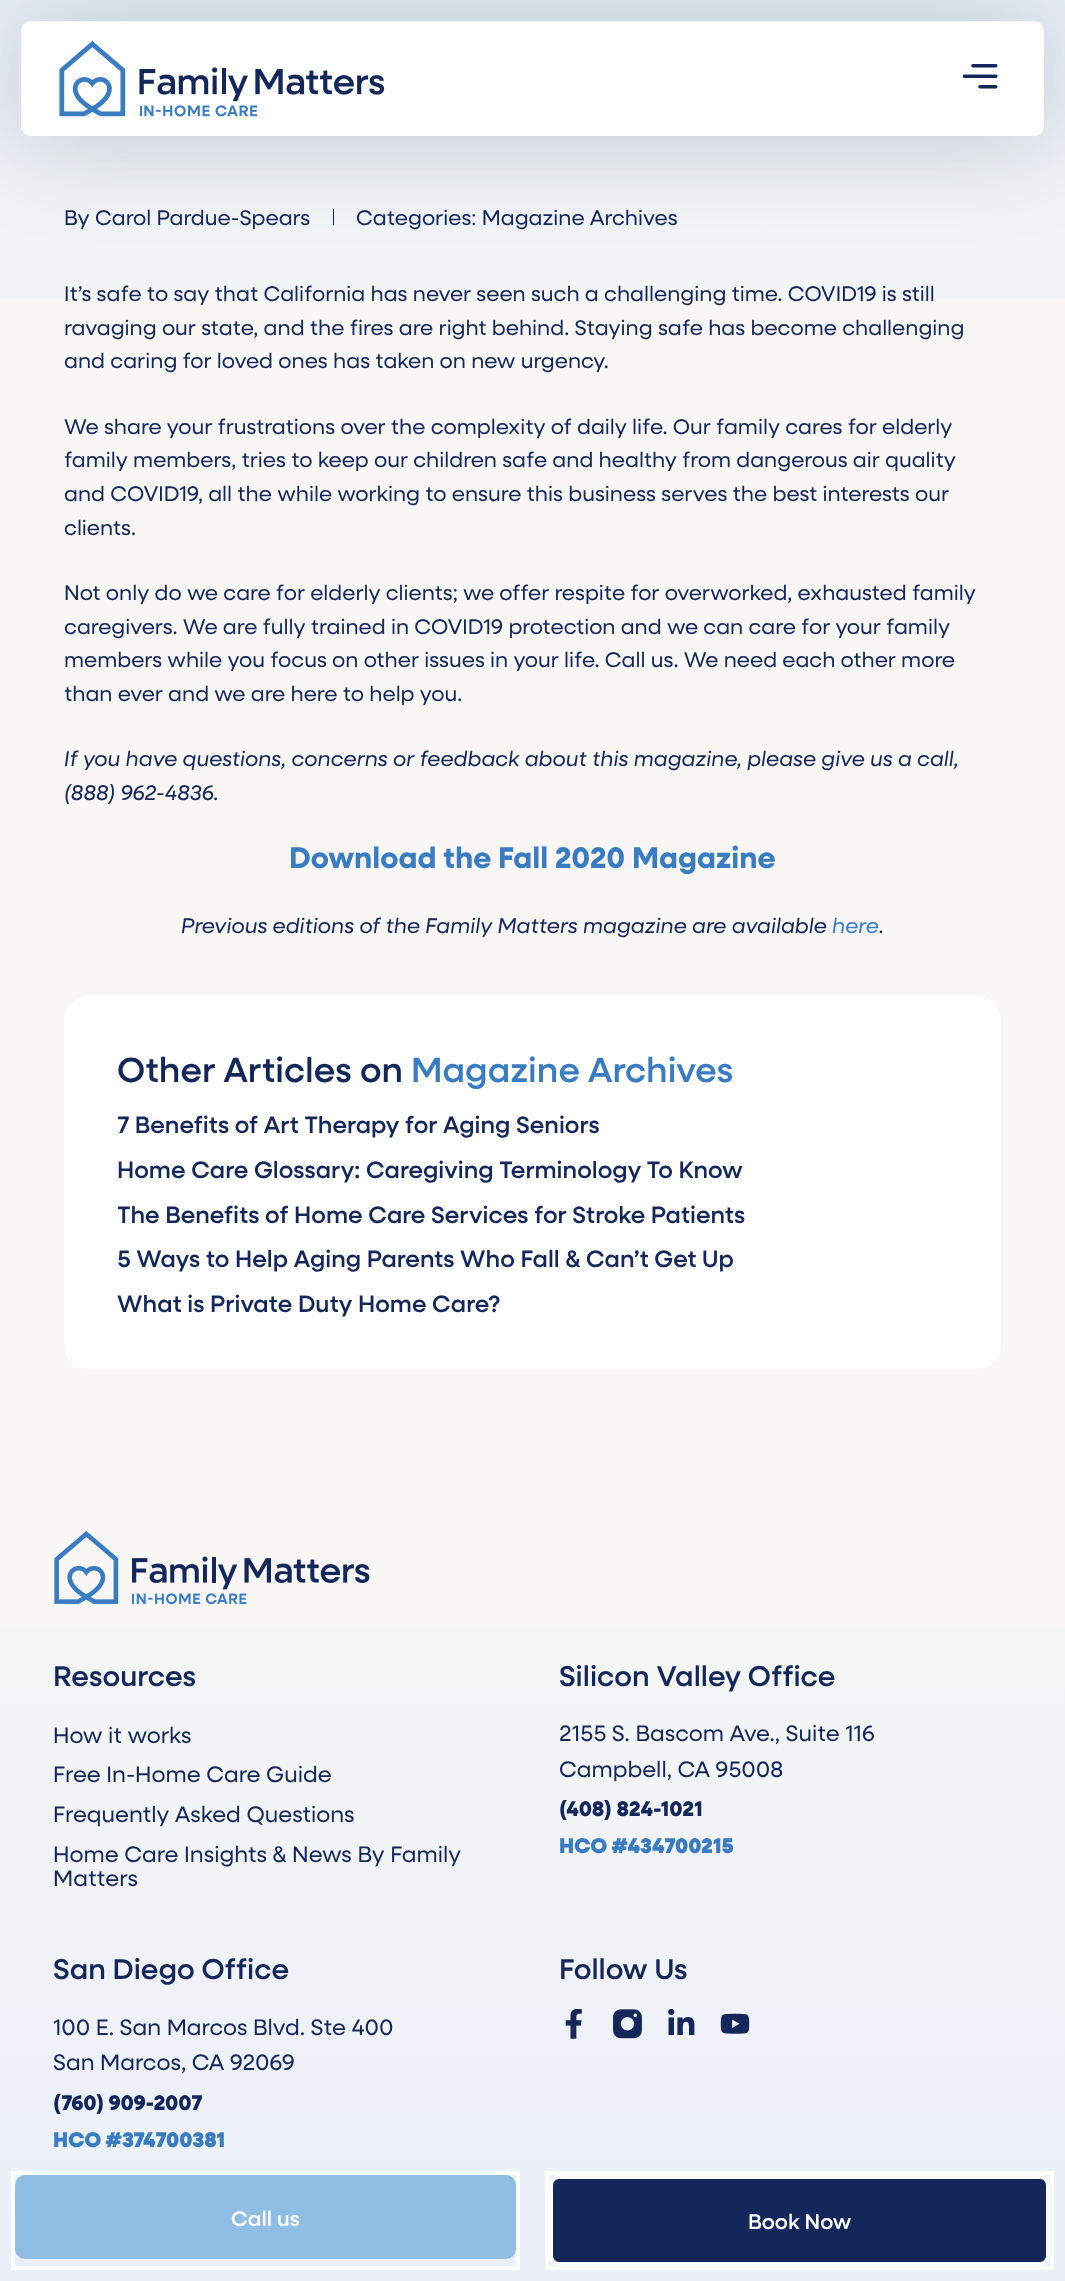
async function draw(canvas) {
  canvas.width = 1065;
  canvas.height = 2281;
  const ctx = canvas.getContext('2d');
  ctx.miterLimit = 4;
  ctx.fontKerning = 'normal';
  function label(s, x, y, font, color) {
    ctx.font = font;
    ctx.fillStyle = color;
    ctx.fillText(s, x, y);
  }
  function rect(x, y, w, h, color) {
    ctx.fillStyle = color;
    ctx.fillRect(x, y, w, h);
  }
  function roundedRect(x, y, w, h, r, color) {
    ctx.fillStyle = color;
    ctx.beginPath();
    ctx.roundRect(x, y, w, h, r);
    ctx.fill();
  }
  async function image(src, x, y, w, h) {
    const img = new Image();
    img.src = src;
    await img.decode();
    ctx.drawImage(img, x, y, w, h);
  }
  let gradient, path;

  rect(0, 0, 1065, 2281, '#f8f7f5');
  await image('assets/img1.png', 0, 0, 1065, 299);
  rect(333, 209, 1, 16, '#14275a');
  ctx.save();
  path = new Path2D('M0 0H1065V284H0ZM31 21H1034C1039.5 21 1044 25.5 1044 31V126C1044 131.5 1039.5 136 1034 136H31C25.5 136 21 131.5 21 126V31C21 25.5 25.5 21 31 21Z');
  ctx.clip(path, 'evenodd');
  ctx.fillStyle = '#3e5b5647';
  ctx.filter = 'blur(49px)';
  ctx.beginPath();
  ctx.roundRect(21, 21, 1023, 115, 10);
  ctx.fill();
  ctx.filter = 'none';
  ctx.restore();
  roundedRect(21, 21, 1023, 115, 10, '#ffffffeb');
  await image('assets/img2.png', 59, 41, 326, 76);
  await image('assets/img3.png', 963, 64, 35, 25);
  label('By Carol Pardue-Spears', 64, 225, '21.25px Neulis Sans', '#14275a');
  label('Categories: Magazine Archives', 356, 225, '21.25px Neulis Sans', '#14275a');
  label('It’s safe to say that California has never seen such a challenging time. COVID19 is still', 64, 301, '21.25px Neulis Sans', '#14275a');
  label('ravaging our state, and the fires are right behind. Staying safe has become challenging', 64, 335, '21.25px Neulis Sans', '#14275a');
  label('and caring for loved ones has taken on new urgency.', 64, 368, '21.25px Neulis Sans', '#14275a');
  label('We share your frustrations over the complexity of daily life. Our family cares for elderly', 64, 434, '21.25px Neulis Sans', '#14275a');
  label('family members, tries to keep our children safe and healthy from dangerous air quality', 64, 467, '21.25px Neulis Sans', '#14275a');
  label('and COVID19, all the while working to ensure this business serves the best interests our', 64, 501, '21.25px Neulis Sans', '#14275a');
  label('clients.', 64, 535, '21.25px Neulis Sans', '#14275a');
  label('Not only do we care for elderly clients; we offer respite for overworked, exhausted family', 64, 600, '21.25px Neulis Sans', '#14275a');
  label('caregivers. We are fully trained in COVID19 protection and we can care for your family', 64, 634, '21.25px Neulis Sans', '#14275a');
  label('members while you focus on other issues in your life. Call us. We need each other more', 64, 667, '21.25px Neulis Sans', '#14275a');
  label('than ever and we are here to help you.', 64, 701, '21.25px Neulis Sans', '#14275a');
  label('If you have questions, concerns or feedback about this magazine, please give us a call,', 64, 766, 'italic 21.25px Neulis Sans', '#14275a');
  label('(888) 962-4836.', 64, 800, 'italic 21.25px Neulis Sans', '#14275a');
  label('Download the Fall 2020 Magazine', 289, 868, 'bold 30px Neulis Sans', '#397cc2');
  label('Previous editions of the Family Matters magazine are available', 181, 933, 'italic 21.25px Neulis Sans', '#14275a');
  label('here', 832, 933, 'italic 21.25px Neulis Sans', '#397cc2');
  label('.', 879, 933, 'italic 21.25px Neulis Sans', '#14275a');
  roundedRect(64, 995, 937, 375, 25, '#fff');
  label('Other Articles on', 117, 1082, '500 35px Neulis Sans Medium', '#14275a');
  label('Magazine Archives', 411, 1082, '500 35px Neulis Sans Medium', '#397cc2');
  label('7 Benefits of Art Therapy for Aging Seniors', 117, 1133, '500 23.75px Neulis Sans Medium', '#14275a');
  label('Home Care Glossary: Caregiving Terminology To Know', 117, 1178, '500 23.75px Neulis Sans Medium', '#14275a');
  ctx.save();
  ctx.beginPath();
  ctx.rect(118, 1201, 627, 27);
  ctx.clip();
  label('The Benefits of Home Care Services for Stroke Patients', 117, 1223, '500 23.75px Neulis Sans Medium', '#14275a');
  ctx.restore();
  label('5 Ways to Help Aging Parents Who Fall & Can’t Get Up', 117, 1267, '500 23.75px Neulis Sans Medium', '#14275a');
  label('What is Private Duty Home Care?', 117, 1312, '500 23.75px Neulis Sans Medium', '#14275a');
  gradient = ctx.createLinearGradient(532, 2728, 532, 1478);
  gradient.addColorStop(0, '#e3ebfa');
  gradient.addColorStop(1, '#f8f7f5');
  ctx.fillStyle = gradient;
  ctx.fillRect(0, 1627, 1065, 654);
  await image('assets/img4.png', 54, 1531, 316, 74);
  label('Resources', 53, 1686, '500 28.75px Neulis Sans Medium', '#14275a');
  label('How it works', 53, 1743, '22.5px Neulis Sans', '#14275a');
  label('Free In-Home Care Guide', 53, 1782, '22.5px Neulis Sans', '#14275a');
  label('Frequently Asked Questions', 53, 1822, '22.5px Neulis Sans', '#14275a');
  label('Home Care Insights & News By Family', 53, 1862, '22.5px Neulis Sans', '#14275a');
  label('Matters', 53, 1886, '22.5px Neulis Sans', '#14275a');
  label('Silicon Valley Office', 559, 1686, '500 28.75px Neulis Sans Medium', '#14275a');
  label('2155 S. Bascom Ave., Suite 116', 559, 1741, '22.5px Neulis Sans', '#14275a');
  label('Campbell, CA 95008', 559, 1777, '22.5px Neulis Sans', '#14275a');
  label('(408) 824-1021', 559, 1816, '800 21.25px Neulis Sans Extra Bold', '#14275a');
  label('HCO #434700215', 559, 1853, '900 21.25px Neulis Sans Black', '#397cc2');
  label('San Diego Office', 53, 1979, '500 28.75px Neulis Sans Medium', '#14275a');
  label('100 E. San Marcos Blvd. Ste 400', 53, 2035, '22.5px Neulis Sans', '#14275a');
  label('San Marcos, CA 92069', 53, 2070, '22.5px Neulis Sans', '#14275a');
  label('(760) 909-2007', 53, 2110, '800 21.25px Neulis Sans Extra Bold', '#14275a');
  label('HCO #374700381', 53, 2147, '900 21.25px Neulis Sans Black', '#397cc2');
  label('Follow Us', 559, 1979, '500 28.75px Neulis Sans Medium', '#14275a');
  await image('assets/img5.png', 565, 2009, 17, 30);
  await image('assets/img6.png', 613, 2009, 29, 30);
  await image('assets/img7.png', 668, 2009, 27, 26);
  await image('assets/img8.png', 720, 2013, 30, 21);
  ctx.strokeStyle = '#fff';
  ctx.lineWidth = 4;
  ctx.strokeRect(13, 2173, 505, 95);
  roundedRect(15, 2175, 501, 84, 10, '#90bde3');
  label('Call us', 231, 2226, '500 21.25px Neulis Sans Medium', '#fff');
  ctx.strokeRect(547, 2173, 505, 95);
  ctx.fillStyle = '#14275a';
  ctx.beginPath();
  ctx.roundRect(551, 2177, 497, 87, 8);
  ctx.fill();
  ctx.stroke();
  label('Book Now', 748, 2229, '500 21.25px Neulis Sans Medium', '#fff');
}

draw(document.querySelector('canvas'));
